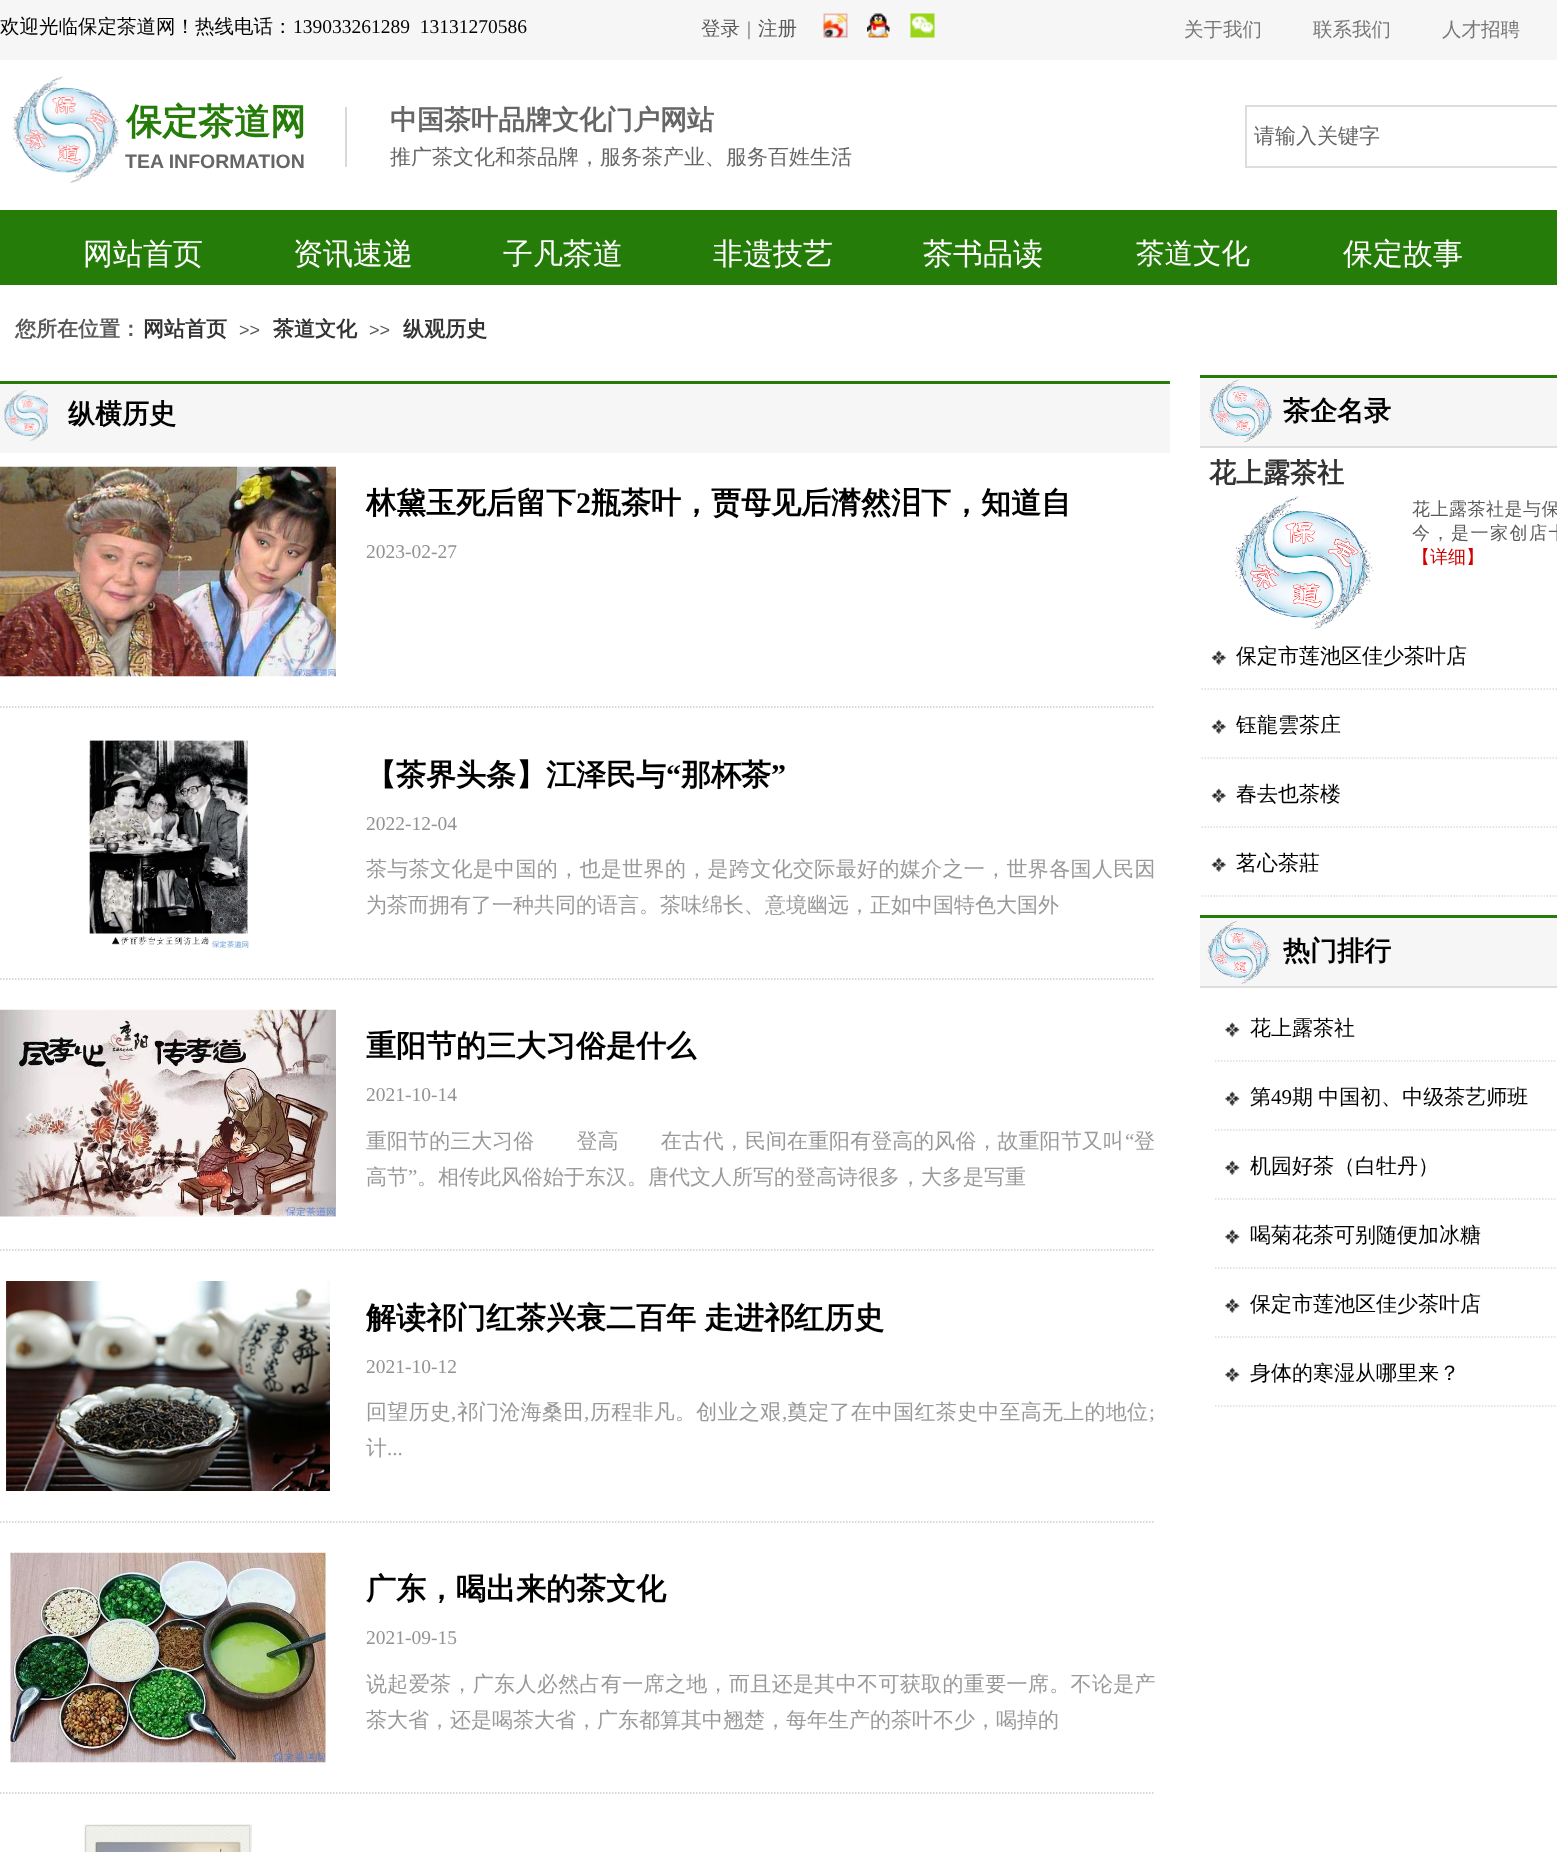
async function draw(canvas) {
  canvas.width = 1557;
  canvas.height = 1852;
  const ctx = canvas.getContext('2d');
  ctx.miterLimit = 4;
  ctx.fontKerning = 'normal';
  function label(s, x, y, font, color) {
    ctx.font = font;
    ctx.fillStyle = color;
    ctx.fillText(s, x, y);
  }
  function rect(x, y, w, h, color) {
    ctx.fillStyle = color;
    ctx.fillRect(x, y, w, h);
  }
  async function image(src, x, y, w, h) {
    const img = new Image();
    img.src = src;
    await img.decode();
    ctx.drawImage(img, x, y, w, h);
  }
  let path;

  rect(0, 0, 1557, 1852, '#fff');
  rect(0, 0, 1557, 60, '#f6f6f6');
  label('欢迎光临保定茶道网！热线电话：', 0, 33, '500 19.5px WenQuanYi Zen Hei', '#000');
  label('139033261289  13131270586', 293, 33, '19.5px Liberation Serif', '#000');
  label('登录', 701, 35, '500 19.5px WenQuanYi Zen Hei', '#5a5a5a');
  label('|', 747, 35, '19.5px Liberation Serif', '#5a5a5a');
  label('注册', 758, 35, '500 19.5px WenQuanYi Zen Hei', '#5a5a5a');
  await image('assets/img1.png', 823, 13, 25, 25);
  await image('assets/img2.png', 867, 13, 23, 25);
  await image('assets/img3.png', 910, 13, 25, 25);
  label('关于我们', 1184, 36, '500 19.5px WenQuanYi Zen Hei', '#777');
  label('联系我们', 1313, 36, '500 19.5px WenQuanYi Zen Hei', '#777');
  label('人才招聘', 1442, 36, '500 19.5px WenQuanYi Zen Hei', '#777');
  await image('assets/img4.png', 12, 76, 107, 107);
  label('保定茶道网', 126, 134, 'bold 36px WenQuanYi Zen Hei', '#257c08');
  rect(345, 107, 2, 60, '#d9d9d9');
  label('中国茶叶品牌文化门户网站', 390, 129, 'bold 27px WenQuanYi Zen Hei', '#666');
  ctx.strokeStyle = '#ddd';
  ctx.lineWidth = 2;
  ctx.strokeRect(1246, 106, 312, 61);
  label('请输入关键字', 1254, 143, '500 21px WenQuanYi Zen Hei', '#666');
  ctx.save();
  ctx.beginPath();
  ctx.rect(125, 149, 225, 28);
  ctx.clip();
  label('TEA INFORMATION', 125, 168, 'bold 19.5px Liberation Sans', '#666');
  ctx.restore();
  label('推广茶文化和茶品牌，服务茶产业、服务百姓生活', 390, 164, '500 21px WenQuanYi Zen Hei', '#666');
  rect(0, 210, 1557, 75, '#257c08');
  label('网站首页', 83, 264, '500 30px WenQuanYi Zen Hei', '#fff');
  label('资讯速递', 293, 264, '500 30px WenQuanYi Zen Hei', '#fff');
  label('子凡茶道', 503, 264, '500 30px WenQuanYi Zen Hei', '#fff');
  label('非遗技艺', 713, 264, '500 30px WenQuanYi Zen Hei', '#fff');
  label('茶书品读', 923, 264, '500 30px WenQuanYi Zen Hei', '#fff');
  label('茶道文化', 1136, 263, '500 28.5px WenQuanYi Zen Hei', '#fff');
  label('保定故事', 1343, 264, '500 30px WenQuanYi Zen Hei', '#fff');
  label('您所在位置：', 15, 336, 'bold 21px WenQuanYi Zen Hei', '#5a5a5a');
  label('网站首页', 143, 336, 'bold 21px WenQuanYi Zen Hei', '#333');
  label('>>', 239, 336, '18px Liberation Sans', '#5a5a5a');
  label('茶道文化', 273, 336, 'bold 21px WenQuanYi Zen Hei', '#333');
  label('>>', 369, 336, '18px Liberation Sans', '#5a5a5a');
  label('纵观历史', 403, 336, 'bold 21px WenQuanYi Zen Hei', '#333');
  rect(0, 384, 1170, 69, '#f6f6f6');
  rect(0, 381, 1170, 3, '#257c08');
  await image('assets/img5.png', 4, 390, 44, 51);
  label('纵横历史', 68, 423, 'bold 27px WenQuanYi Zen Hei', '#000');
  rect(1200, 378, 357, 68, '#f6f6f6');
  rect(1200, 375, 357, 3, '#257c08');
  rect(1200, 446, 357, 2, '#ddd');
  await image('assets/img6.png', 1209, 379, 63, 64);
  label('茶企名录', 1283, 420, 'bold 27px WenQuanYi Zen Hei', '#000');
  label('花上露茶社', 1209, 482, 'bold 27px WenQuanYi Zen Hei', '#333');
  await image('assets/img7.png', 1234, 496, 140, 133);
  ctx.letterSpacing = '0.5px';
  label('花上露茶社是与保', 1412, 515, '500 18px WenQuanYi Zen Hei', '#5a5a5a');
  ctx.letterSpacing = '1.5px';
  label('今，是一家创店十', 1412, 539, '500 18px WenQuanYi Zen Hei', '#5a5a5a');
  ctx.letterSpacing = '0px';
  label('【详细】', 1412, 563, '500 18px WenQuanYi Zen Hei', '#cf0202');
  await image('assets/img8.png', 1211, 650, 15, 15);
  label('保定市莲池区佳少茶叶店', 1236, 663, '500 21px WenQuanYi Zen Hei', '#000');
  path = new Path2D('M1201.5 689H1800');
  ctx.lineWidth = 1.5;
  ctx.setLineDash([1.5, 1.5]);
  ctx.stroke(path);
  await image('assets/img8.png', 1211, 719, 15, 15);
  label('钰龍雲茶庄', 1236, 732, '500 21px WenQuanYi Zen Hei', '#000');
  path = new Path2D('M1201.5 758H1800');
  ctx.stroke(path);
  await image('assets/img8.png', 1211, 788, 15, 15);
  label('春去也茶楼', 1236, 801, '500 21px WenQuanYi Zen Hei', '#000');
  path = new Path2D('M1201.5 827H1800');
  ctx.stroke(path);
  await image('assets/img8.png', 1211, 857, 15, 15);
  label('茗心茶莊', 1236, 870, '500 21px WenQuanYi Zen Hei', '#000');
  path = new Path2D('M1201.5 896H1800');
  ctx.stroke(path);
  ctx.save();
  ctx.beginPath();
  ctx.rect(0, 467, 1155, 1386);
  ctx.clip();
  path = new Path2D('M0 707H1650');
  ctx.strokeStyle = '#ccc';
  ctx.stroke(path);
  ctx.restore();
  await image('assets/img9.png', 0, 466, 336, 211);
  label('林黛玉死后留下', 366, 513, 'bold 30px WenQuanYi Zen Hei', '#000');
  label('2', 576, 513, 'bold 30px Liberation Serif', '#000');
  label('瓶茶叶，贾母见后潸然泪下，知道自', 591, 513, 'bold 30px WenQuanYi Zen Hei', '#000');
  label('2023-02-27', 366, 558, '19.5px Liberation Serif', '#929292');
  ctx.save();
  ctx.beginPath();
  ctx.rect(0, 467, 1155, 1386);
  ctx.clip();
  path = new Path2D('M0 979H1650');
  ctx.strokeStyle = '#ccc';
  ctx.stroke(path);
  ctx.restore();
  await image('assets/img10.png', 89, 740, 160, 208);
  label('【茶界头条】江泽民与', 366, 785, 'bold 30px WenQuanYi Zen Hei', '#000');
  label('“', 666, 785, 'bold 30px Liberation Serif', '#000');
  label('那杯茶', 681, 785, 'bold 30px WenQuanYi Zen Hei', '#000');
  label('”', 771, 785, 'bold 30px Liberation Serif', '#000');
  label('2022-12-04', 366, 830, '19.5px Liberation Serif', '#929292');
  ctx.letterSpacing = '0.35px';
  label('茶与茶文化是中国的，也是世界的，是跨文化交际最好的媒介之一，世界各国人民因', 366, 876, '500 21px WenQuanYi Zen Hei', '#999');
  ctx.letterSpacing = '0px';
  label('为茶而拥有了一种共同的语言。茶味绵长、意境幽远，正如中国特色大国外', 366, 912, '500 21px WenQuanYi Zen Hei', '#999');
  ctx.save();
  ctx.beginPath();
  ctx.rect(0, 467, 1155, 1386);
  ctx.clip();
  path = new Path2D('M0 1250H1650');
  ctx.strokeStyle = '#ccc';
  ctx.stroke(path);
  ctx.restore();
  await image('assets/img11.png', 0, 1009, 336, 208);
  label('重阳节的三大习俗是什么', 366, 1056, 'bold 30px WenQuanYi Zen Hei', '#000');
  label('2021-10-14', 366, 1101, '19.5px Liberation Serif', '#929292');
  ctx.letterSpacing = '0.05px';
  label('重阳节的三大习俗　　登高　　在古代，民间在重阳有登高的风俗，故重阳节又叫', 366, 1148, '500 21px WenQuanYi Zen Hei', '#999');
  label('“', 1125, 1148, '21px Liberation Serif', '#999');
  label('登', 1134, 1148, '500 21px WenQuanYi Zen Hei', '#999');
  ctx.letterSpacing = '0px';
  label('高节', 366, 1184, '500 21px WenQuanYi Zen Hei', '#999');
  label('”', 408, 1184, '21px Liberation Serif', '#999');
  label('。相传此风俗始于东汉。唐代文人所写的登高诗很多，大多是写重', 417, 1184, '500 21px WenQuanYi Zen Hei', '#999');
  ctx.save();
  ctx.beginPath();
  ctx.rect(0, 467, 1155, 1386);
  ctx.clip();
  path = new Path2D('M0 1522H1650');
  ctx.strokeStyle = '#ccc';
  ctx.stroke(path);
  ctx.restore();
  await image('assets/img12.png', 6, 1281, 324, 210);
  ctx.wordSpacing = '-1px';
  label('解读祁门红茶兴衰二百年 走进祁红历史', 366, 1328, 'bold 30px WenQuanYi Zen Hei', '#000');
  ctx.wordSpacing = '0px';
  label('2021-10-12', 366, 1373, '19.5px Liberation Serif', '#929292');
  ctx.letterSpacing = '0.25px';
  label('回望历史', 366, 1419, '500 21px WenQuanYi Zen Hei', '#999');
  label(',', 451, 1419, '21px Liberation Serif', '#999');
  label('祁门沧海桑田', 457, 1419, '500 21px WenQuanYi Zen Hei', '#999');
  label(',', 584, 1419, '21px Liberation Serif', '#999');
  label('历程非凡。创业之艰', 590, 1419, '500 21px WenQuanYi Zen Hei', '#999');
  label(',', 782, 1419, '21px Liberation Serif', '#999');
  label('奠定了在中国红茶史中至高无上的地位', 787, 1419, '500 21px WenQuanYi Zen Hei', '#999');
  label(';', 1149, 1419, '21px Liberation Serif', '#999');
  ctx.letterSpacing = '0px';
  label('计', 366, 1455, '500 21px WenQuanYi Zen Hei', '#999');
  label('...', 387, 1455, '21px Liberation Serif', '#999');
  ctx.save();
  ctx.beginPath();
  ctx.rect(0, 467, 1155, 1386);
  ctx.clip();
  path = new Path2D('M0 1793H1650');
  ctx.strokeStyle = '#ccc';
  ctx.stroke(path);
  ctx.restore();
  await image('assets/img13.png', 10, 1552, 316, 211);
  label('广东，喝出来的茶文化', 366, 1599, 'bold 30px WenQuanYi Zen Hei', '#000');
  label('2021-09-15', 366, 1644, '19.5px Liberation Serif', '#929292');
  ctx.letterSpacing = '0.35px';
  label('说起爱茶，广东人必然占有一席之地，而且还是其中不可获取的重要一席。不论是产', 366, 1691, '500 21px WenQuanYi Zen Hei', '#999');
  ctx.letterSpacing = '0px';
  label('茶大省，还是喝茶大省，广东都算其中翘楚，每年生产的茶叶不少，喝掉的', 366, 1727, '500 21px WenQuanYi Zen Hei', '#999');
  await image('assets/img14.png', 84, 1824, 168, 28);
  rect(1200, 918, 357, 68, '#f6f6f6');
  rect(1200, 915, 357, 3, '#257c08');
  rect(1200, 986, 357, 2, '#ddd');
  await image('assets/img15.png', 1207, 921, 64, 63);
  label('热门排行', 1283, 960, 'bold 27px WenQuanYi Zen Hei', '#000');
  await image('assets/img16.png', 1225, 1022, 15, 15);
  label('花上露茶社', 1250, 1035, '500 21px WenQuanYi Zen Hei', '#000');
  path = new Path2D('M1215 1061H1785');
  ctx.stroke(path);
  await image('assets/img16.png', 1225, 1091, 15, 15);
  label('第', 1250, 1104, '500 21px WenQuanYi Zen Hei', '#000');
  label('49', 1271, 1104, '21px Liberation Serif', '#000');
  ctx.wordSpacing = '-1px';
  label('期 中国初、中级茶艺师班', 1292, 1104, '500 21px WenQuanYi Zen Hei', '#000');
  path = new Path2D('M1215 1130H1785');
  ctx.stroke(path);
  await image('assets/img16.png', 1225, 1160, 15, 15);
  ctx.wordSpacing = '0px';
  label('机园好茶（白牡丹）', 1250, 1173, '500 21px WenQuanYi Zen Hei', '#000');
  path = new Path2D('M1215 1199H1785');
  ctx.stroke(path);
  await image('assets/img16.png', 1225, 1229, 15, 15);
  label('喝菊花茶可别随便加冰糖', 1250, 1242, '500 21px WenQuanYi Zen Hei', '#000');
  path = new Path2D('M1215 1268H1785');
  ctx.stroke(path);
  await image('assets/img16.png', 1225, 1298, 15, 15);
  label('保定市莲池区佳少茶叶店', 1250, 1311, '500 21px WenQuanYi Zen Hei', '#000');
  path = new Path2D('M1215 1337H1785');
  ctx.stroke(path);
  await image('assets/img16.png', 1225, 1367, 15, 15);
  label('身体的寒湿从哪里来？', 1250, 1380, '500 21px WenQuanYi Zen Hei', '#000');
  path = new Path2D('M1215 1406H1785');
  ctx.stroke(path);
}

draw(document.querySelector('canvas'));
